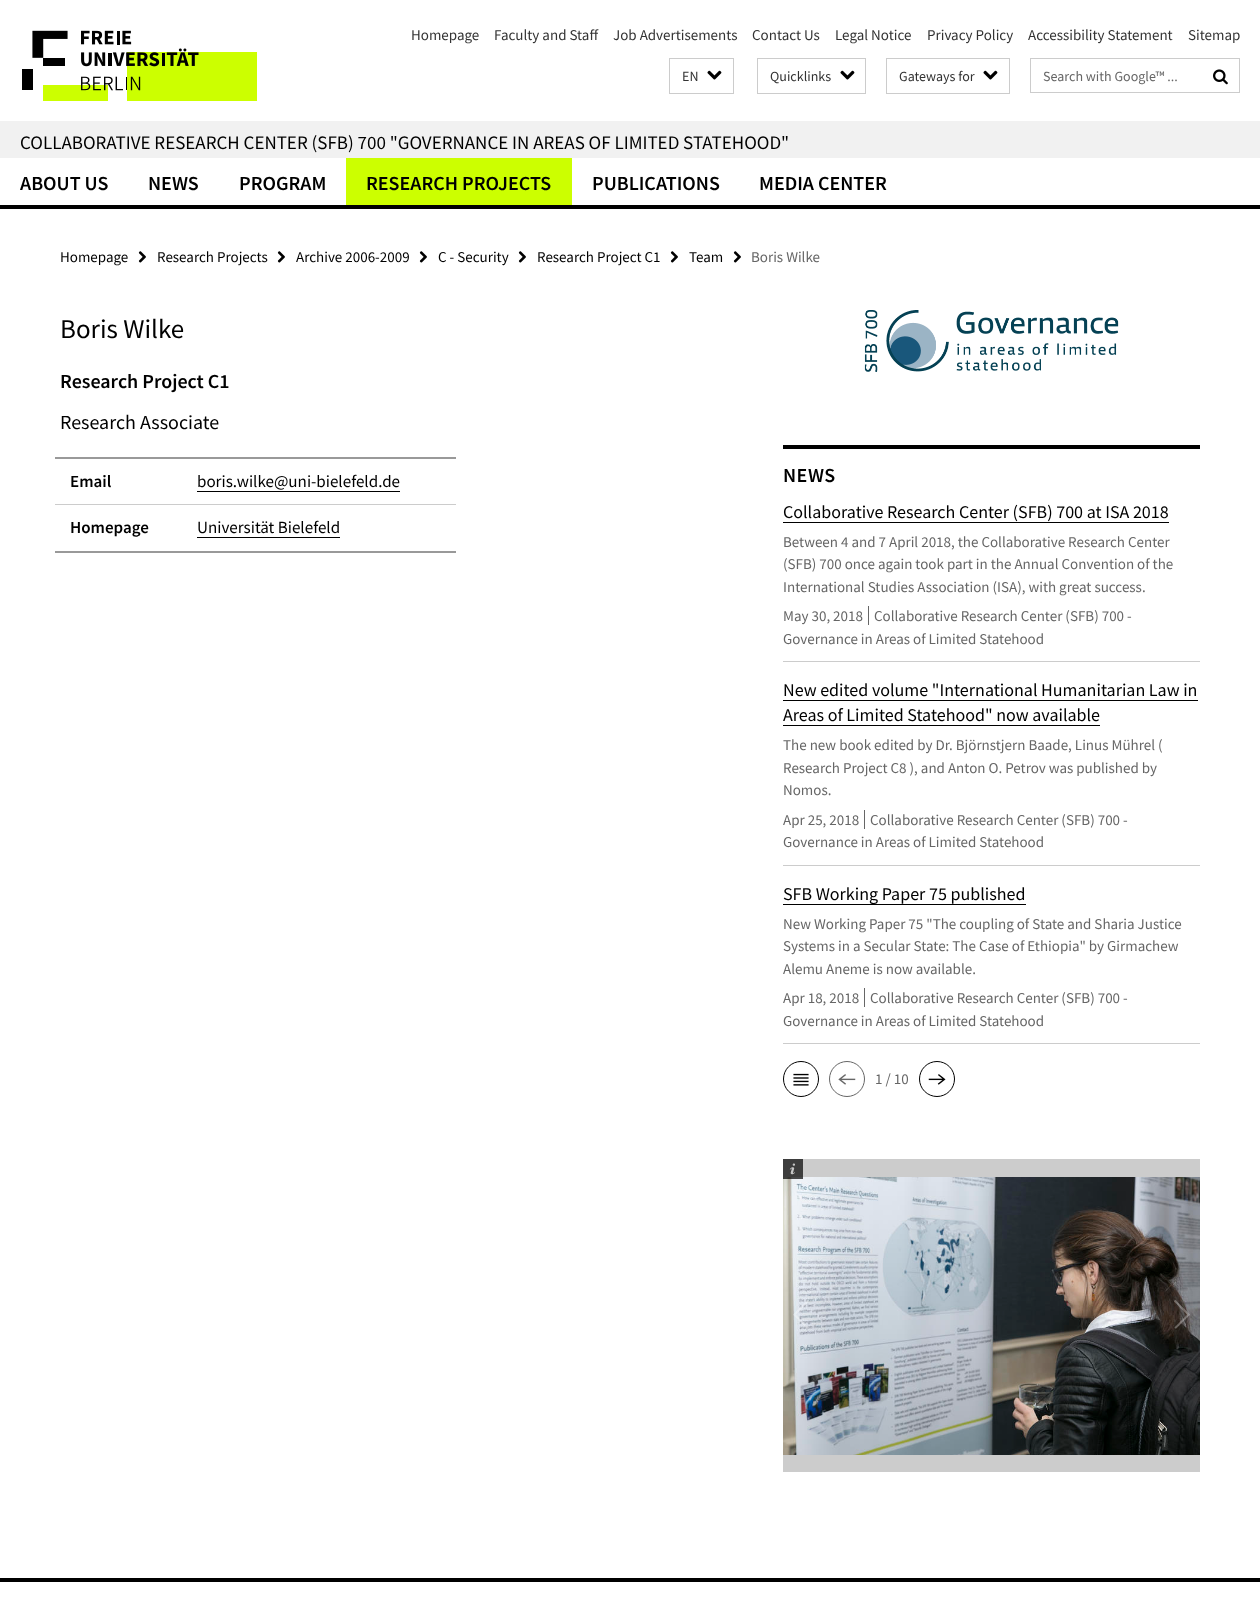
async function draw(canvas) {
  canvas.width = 1260;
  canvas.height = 1622;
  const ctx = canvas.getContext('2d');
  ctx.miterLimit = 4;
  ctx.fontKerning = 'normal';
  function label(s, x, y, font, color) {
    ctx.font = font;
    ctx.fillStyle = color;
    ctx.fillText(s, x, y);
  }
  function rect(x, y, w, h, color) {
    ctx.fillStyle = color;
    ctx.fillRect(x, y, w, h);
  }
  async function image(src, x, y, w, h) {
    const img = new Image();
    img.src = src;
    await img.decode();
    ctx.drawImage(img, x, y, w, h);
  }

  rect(0, 0, 1260, 1622, '#fff');
  await image('assets/img1.png', 22, 30, 235, 71);
  label('Homepage', 411, 40, '15px Source Sans Pro', '#333');
  label('Faculty and Staff', 494, 40, '15px Source Sans Pro', '#333');
  label('Job Advertisements', 613, 40, '15px Source Sans Pro', '#333');
  label('Contact Us', 752, 40, '15px Source Sans Pro', '#333');
  label('Legal Notice', 835, 40, '15px Source Sans Pro', '#333');
  label('Privacy Policy', 927, 40, '15px Source Sans Pro', '#333');
  label('Accessibility Statement', 1028, 40, '15px Source Sans Pro', '#333');
  label('Sitemap', 1188, 40, '15px Source Sans Pro', '#333');
  ctx.strokeStyle = '#ccc';
  ctx.strokeRect(669.5, 58.5, 64, 35);
  label('EN', 682, 81, '14px Source Sans Pro', '#333');
  await image('assets/img2.png', 707, 70, 15, 10);
  ctx.strokeRect(757.5, 58.5, 108, 35);
  label('Quicklinks', 770, 81, '14px Source Sans Pro', '#333');
  await image('assets/img2.png', 840, 70, 15, 10);
  ctx.strokeRect(886.5, 58.5, 123, 35);
  label('Gateways for', 899, 81, '14px Source Sans Pro', '#333');
  await image('assets/img2.png', 983, 70, 15, 10);
  ctx.strokeRect(1030.5, 58.5, 209, 34);
  label('Search with Google™ ...', 1043, 81, '14px Source Sans Pro', '#666');
  await image('assets/img3.png', 1213, 69, 15, 16);
  rect(0, 121, 1260, 37, '#f1f1f1');
  label('COLLABORATIVE RESEARCH CENTER (SFB) 700 "GOVERNANCE IN AREAS OF LIMITED STATEHOOD"', 20, 149, '19px Source Sans Pro', '#000');
  rect(0, 205, 1260, 4, '#000');
  label('ABOUT US', 20, 190, '600 20px Source Sans Pro', '#000');
  label('NEWS', 148, 190, '600 20px Source Sans Pro', '#000');
  label('PROGRAM', 239, 190, '600 20px Source Sans Pro', '#000');
  rect(346, 158, 226, 47, '#cf0');
  label('RESEARCH PROJECTS', 366, 190, '600 20px Source Sans Pro', '#000');
  label('PUBLICATIONS', 592, 190, '600 20px Source Sans Pro', '#000');
  label('MEDIA CENTER', 759, 190, '600 20px Source Sans Pro', '#000');
  label('Homepage', 60, 262, '15px Source Sans Pro', '#000');
  await image('assets/img4.png', 138, 251, 8, 12);
  label('Research Projects', 157, 262, '15px Source Sans Pro', '#000');
  await image('assets/img4.png', 277, 251, 8, 12);
  label('Archive 2006-2009', 296, 262, '15px Source Sans Pro', '#000');
  await image('assets/img4.png', 419, 251, 8, 12);
  label('C - Security', 438, 262, '15px Source Sans Pro', '#000');
  await image('assets/img4.png', 518, 251, 8, 12);
  label('Research Project C1', 537, 262, '15px Source Sans Pro', '#000');
  await image('assets/img4.png', 670, 251, 8, 12);
  label('Team', 689, 262, '15px Source Sans Pro', '#000');
  await image('assets/img4.png', 733, 251, 8, 12);
  label('Boris Wilke', 751, 262, '15px Source Sans Pro', '#666');
  label('Boris Wilke', 60, 338, '27px Source Sans Pro', '#000');
  label('Research Project C1', 60, 388, '600 20px Source Sans Pro', '#000');
  label('Research Associate', 60, 429, '20px Source Sans Pro', '#000');
  rect(55, 457, 401, 2, '#999');
  rect(55, 504, 401, 1, '#ccc');
  label('Email', 70, 487, '600 17px Source Sans Pro', '#000');
  label('boris.wilke@uni-bielefeld.de', 197, 487, '17px Source Sans Pro', '#000');
  rect(197, 491, 203, 1, '#000');
  rect(55, 551, 401, 2, '#999');
  label('Homepage', 70, 533, '600 17px Source Sans Pro', '#000');
  label('Universität Bielefeld', 197, 533, '17px Source Sans Pro', '#000');
  rect(197, 537, 143, 1, '#000');
  await image('assets/img5.png', 864, 310, 255, 62);
  rect(783, 445, 417, 4, '#000');
  ctx.letterSpacing = '0.5px';
  label('NEWS', 783, 482, '600 20px Source Sans Pro', '#000');
  rect(783, 661, 417, 1, '#ccc');
  ctx.letterSpacing = '0px';
  label('Collaborative Research Center (SFB) 700 at ISA 2018', 783, 518, '18px Source Sans Pro', '#000');
  rect(783, 522, 386, 1, '#000');
  label('Between 4 and 7 April 2018, the Collaborative Research Center', 783, 547, '15px Source Sans Pro', '#666');
  label('(SFB) 700 once again took part in the Annual Convention of the', 783, 569, '15px Source Sans Pro', '#666');
  label('International Studies Association (ISA), with great success.', 783, 592, '15px Source Sans Pro', '#666');
  label('May 30, 2018', 783, 621, '15px Source Sans Pro', '#666');
  label('Collaborative Research Center (SFB) 700 -', 874, 621, '15px Source Sans Pro', '#666');
  rect(868, 606, 1, 19, '#666');
  label('Governance in Areas of Limited Statehood', 783, 644, '15px Source Sans Pro', '#666');
  rect(783, 865, 417, 1, '#ccc');
  label('New edited volume "International Humanitarian Law in', 783, 696, '18px Source Sans Pro', '#000');
  rect(783, 700, 415, 1, '#000');
  label('Areas of Limited Statehood" now available', 783, 721, '18px Source Sans Pro', '#000');
  rect(783, 725, 317, 1, '#000');
  label('The new book edited by Dr. Björnstjern Baade, Linus Mührel (', 783, 750, '15px Source Sans Pro', '#666');
  label('Research Project C8 ), and Anton O. Petrov was published by', 783, 773, '15px Source Sans Pro', '#666');
  label('Nomos.', 783, 795, '15px Source Sans Pro', '#666');
  label('Apr 25, 2018', 783, 825, '15px Source Sans Pro', '#666');
  label('Collaborative Research Center (SFB) 700 -', 870, 825, '15px Source Sans Pro', '#666');
  rect(864, 810, 1, 19, '#666');
  label('Governance in Areas of Limited Statehood', 783, 847, '15px Source Sans Pro', '#666');
  rect(783, 1043, 417, 1, '#ccc');
  label('SFB Working Paper 75 published', 783, 900, '18px Source Sans Pro', '#000');
  rect(783, 904, 243, 1, '#000');
  label('New Working Paper 75 "The coupling of State and Sharia Justice', 783, 929, '15px Source Sans Pro', '#666');
  label('Systems in a Secular State: The Case of Ethiopia" by Girmachew', 783, 951, '15px Source Sans Pro', '#666');
  label('Alemu Aneme is now available.', 783, 974, '15px Source Sans Pro', '#666');
  label('Apr 18, 2018', 783, 1003, '15px Source Sans Pro', '#666');
  label('Collaborative Research Center (SFB) 700 -', 870, 1003, '15px Source Sans Pro', '#666');
  rect(864, 988, 1, 19, '#666');
  label('Governance in Areas of Limited Statehood', 783, 1026, '15px Source Sans Pro', '#666');
  ctx.beginPath();
  ctx.arc(801, 1079, 17.5, 0, 2 * Math.PI);
  ctx.strokeStyle = '#000';
  ctx.stroke();
  await image('assets/img6.png', 793, 1073, 16, 13);
  ctx.beginPath();
  ctx.arc(847, 1079, 17.5, 0, 2 * Math.PI);
  ctx.strokeStyle = '#666';
  ctx.stroke();
  await image('assets/img7.png', 838, 1074, 18, 11);
  label('1 / 10', 875, 1084, '15px Source Sans Pro', '#666');
  ctx.beginPath();
  ctx.arc(937, 1079, 17.5, 0, 2 * Math.PI);
  ctx.strokeStyle = '#000';
  ctx.stroke();
  await image('assets/img8.png', 928, 1074, 18, 11);
  rect(783, 1159, 417, 313, '#ccc');
  await image('assets/img9.png', 783, 1177, 417, 278);
  await image('assets/img10.png', 793, 1300, 16, 29);
  await image('assets/img11.png', 1174, 1300, 16, 29);
  rect(783, 1159, 20, 20, '#000000b3');
  await image('assets/img12.png', 789, 1163, 6, 12);
  rect(0, 1578, 1260, 4, '#000');
}

draw(document.querySelector('canvas'));
